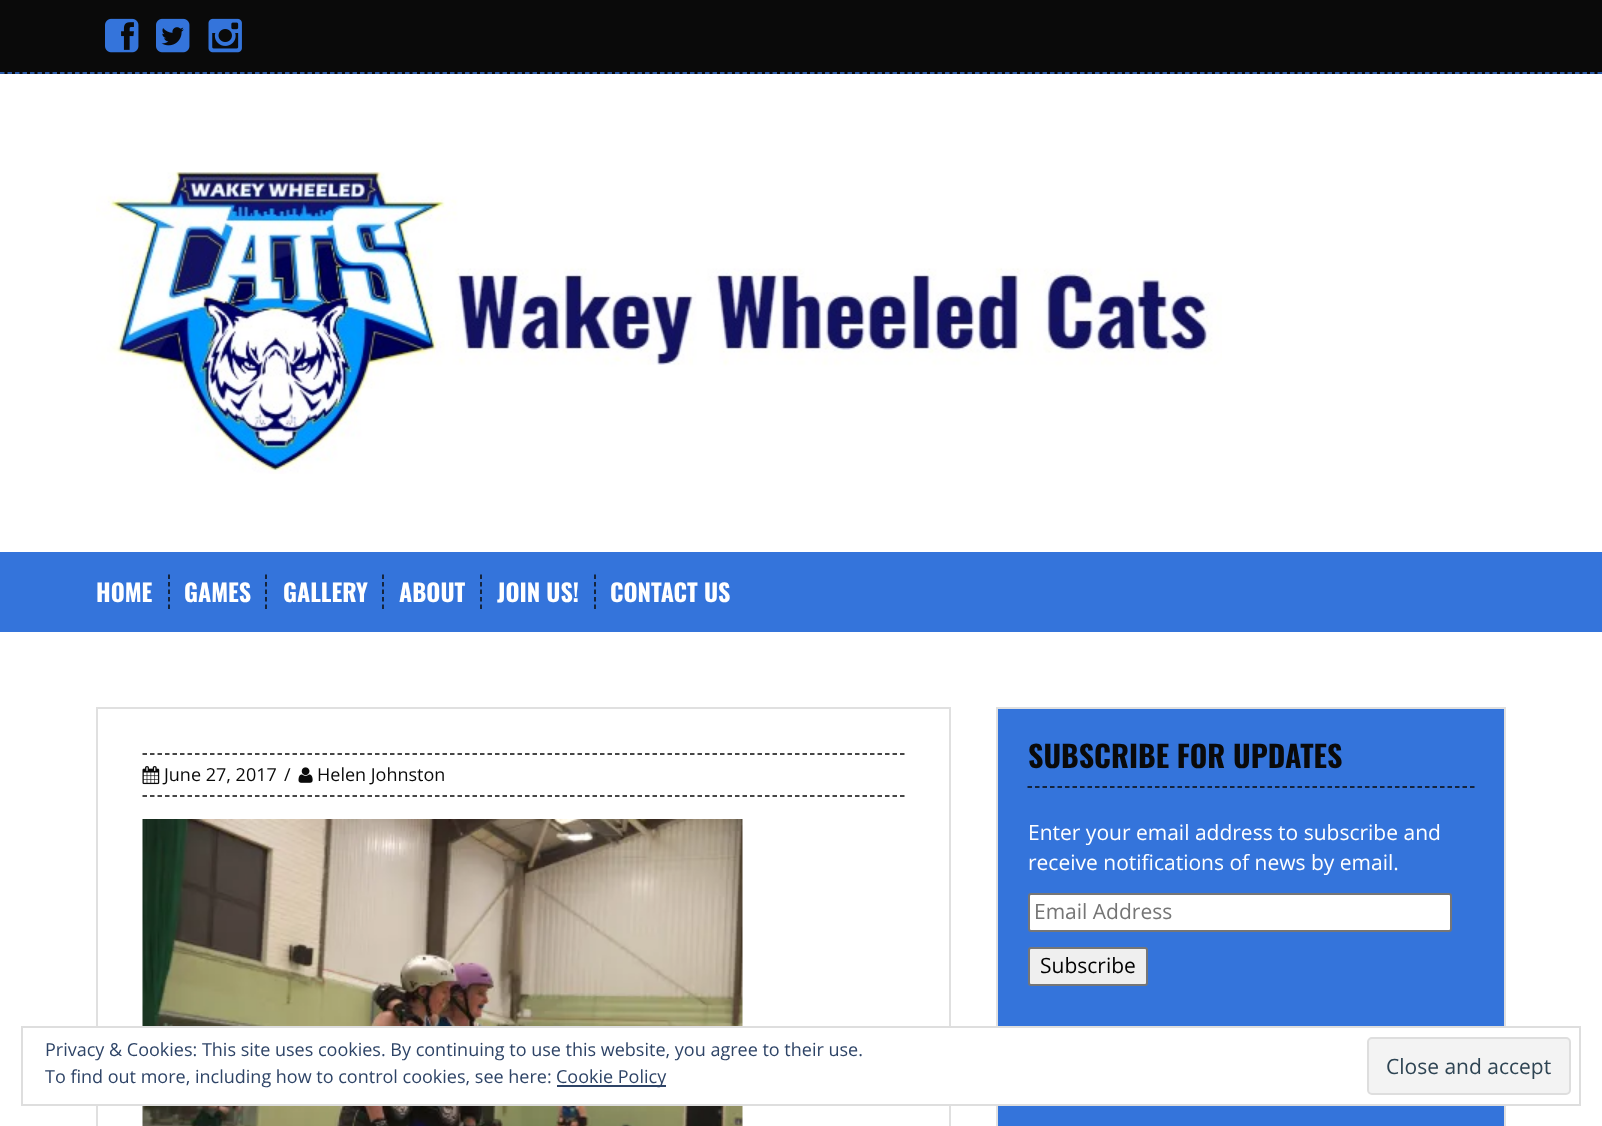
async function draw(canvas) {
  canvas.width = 1602;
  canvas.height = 1126;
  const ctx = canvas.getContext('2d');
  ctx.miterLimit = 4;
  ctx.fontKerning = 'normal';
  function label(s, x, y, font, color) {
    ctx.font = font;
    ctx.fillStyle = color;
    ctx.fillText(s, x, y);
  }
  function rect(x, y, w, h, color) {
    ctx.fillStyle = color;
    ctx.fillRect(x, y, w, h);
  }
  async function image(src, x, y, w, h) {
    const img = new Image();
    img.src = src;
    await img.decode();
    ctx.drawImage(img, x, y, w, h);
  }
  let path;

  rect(0, 0, 1602, 1126, '#fff');
  rect(0, 0, 1602, 74, '#0a0a0a');
  path = new Path2D('M0 73H1602');
  ctx.strokeStyle = '#3474db';
  ctx.lineWidth = 1.5;
  ctx.setLineDash([4.5, 3]);
  ctx.stroke(path);
  await image('assets/img1.png', 105, 18, 34, 35);
  await image('assets/img2.png', 156, 18, 34, 35);
  await image('assets/img3.png', 208, 18, 34, 35);
  await image('assets/img4.png', 96, 171, 1126, 303);
  rect(0, 552, 1602, 80, '#3474db');
  path = new Path2D('M169 574.5V609');
  ctx.strokeStyle = '#0a0a0a';
  ctx.stroke(path);
  label('HOME', 96, 602, 'bold 24px Oswald', '#fff');
  path = new Path2D('M266 574.5V609');
  ctx.stroke(path);
  label('GAMES', 184, 602, 'bold 24px Oswald', '#fff');
  path = new Path2D('M383 574.5V609');
  ctx.stroke(path);
  label('GALLERY', 283, 602, 'bold 24px Oswald', '#fff');
  path = new Path2D('M481 574.5V609');
  ctx.stroke(path);
  label('ABOUT', 399, 602, 'bold 24px Oswald', '#fff');
  path = new Path2D('M595 574.5V609');
  ctx.stroke(path);
  label('JOIN US!', 497, 602, 'bold 24px Oswald', '#fff');
  label('CONTACT US', 610, 602, 'bold 24px Oswald', '#fff');
  ctx.strokeStyle = '#e0e0e0';
  ctx.lineWidth = 2;
  ctx.setLineDash([]);
  ctx.strokeRect(97, 708, 853, 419);
  path = new Path2D('M142.5 754H904.5');
  ctx.strokeStyle = '#0a0a0a';
  ctx.lineWidth = 1.5;
  ctx.setLineDash([4.5, 3]);
  ctx.stroke(path);
  path = new Path2D('M142.5 796H904.5');
  ctx.stroke(path);
  await image('assets/img5.png', 142, 766, 18, 19);
  label('June 27, 2017', 164, 781, '18px Open Sans', '#0a0a0a');
  label('/', 284, 781, '18px Open Sans', '#0a0a0a');
  await image('assets/img6.png', 298, 767, 15, 16);
  label('Helen Johnston', 317, 781, '18px Open Sans', '#0a0a0a');
  await image('assets/img7.png', 142, 819, 601, 307);
  rect(998, 709, 506, 317, '#3474db');
  ctx.strokeStyle = '#e0e0e0';
  ctx.lineWidth = 2;
  ctx.setLineDash([]);
  ctx.strokeRect(997, 708, 508, 323);
  path = new Path2D('M1027.5 787H1474.5');
  ctx.strokeStyle = '#0a0a0a';
  ctx.lineWidth = 1.5;
  ctx.setLineDash([4.5, 3]);
  ctx.stroke(path);
  label('SUBSCRIBE FOR UPDATES', 1028, 768, 'bold 30px Oswald', '#0a0a0a');
  label('Enter your email address to subscribe and', 1028, 840, '21px Open Sans', '#fff');
  label('receive notifications of news by email.', 1028, 870, '21px Open Sans', '#fff');
  ctx.beginPath();
  ctx.roundRect(1029, 894, 422, 37, 2);
  ctx.fill();
  ctx.strokeStyle = '#767676';
  ctx.lineWidth = 2;
  ctx.setLineDash([]);
  ctx.stroke();
  label('Email Address', 1034, 919, '21px Open Sans', '#757575');
  ctx.fillStyle = '#efefef';
  ctx.beginPath();
  ctx.roundRect(1029, 948, 118, 37, 2);
  ctx.fill();
  ctx.stroke();
  label('Subscribe', 1040, 973, '21px Open Sans', '#000');
  rect(998, 1106, 506, 20, '#3474db');
  ctx.strokeStyle = '#e0e0e0';
  ctx.strokeRect(997, 1078, 508, 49);
  rect(96, 1028, 1410, 76, '#fff');
  ctx.strokeStyle = '#dedede';
  ctx.strokeRect(22, 1027, 1558, 78);
  label('Privacy & Cookies: This site uses cookies. By continuing to use this website, you agree to their use.', 45, 1056, '18px Open Sans', '#2e4467');
  label('To find out more, including how to control cookies, see here:', 45, 1083, '18px Open Sans', '#2e4467');
  rect(557, 1085, 109, 2, '#2e4467');
  label('Cookie Policy', 556, 1083, '18px Open Sans', '#2e4467');
  ctx.fillStyle = '#f3f3f3';
  ctx.beginPath();
  ctx.roundRect(1368, 1038, 202, 56, 4);
  ctx.fill();
  ctx.stroke();
  label('Close and accept', 1386, 1074, '21px Open Sans', '#2e4453');
}

draw(document.querySelector('canvas'));
